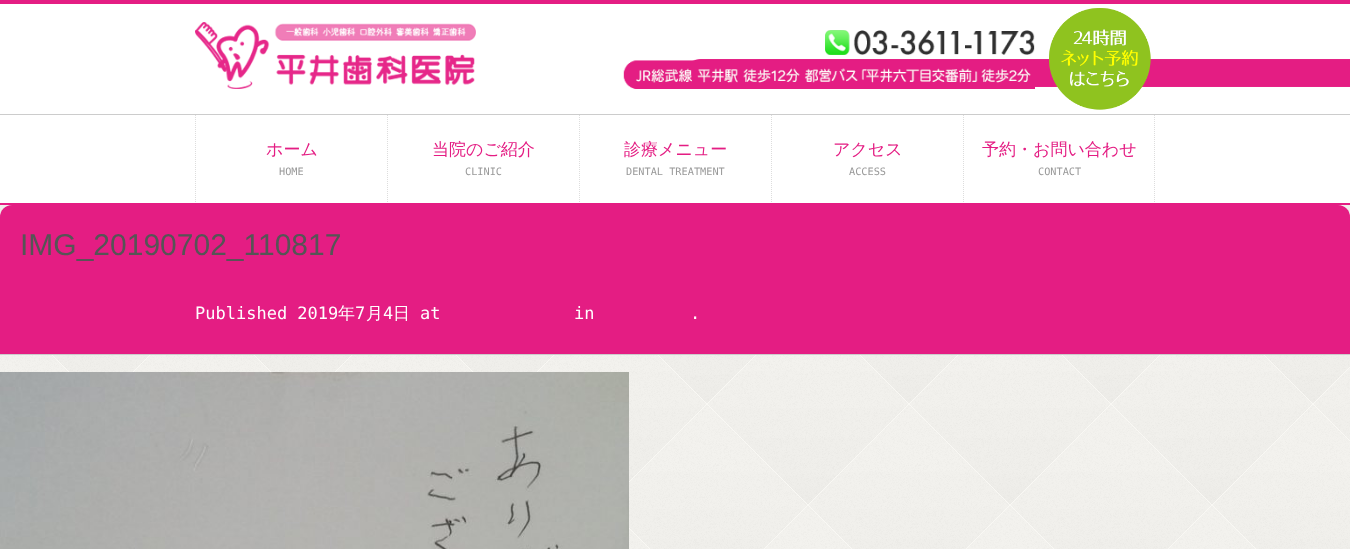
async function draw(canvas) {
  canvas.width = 1350;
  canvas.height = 549;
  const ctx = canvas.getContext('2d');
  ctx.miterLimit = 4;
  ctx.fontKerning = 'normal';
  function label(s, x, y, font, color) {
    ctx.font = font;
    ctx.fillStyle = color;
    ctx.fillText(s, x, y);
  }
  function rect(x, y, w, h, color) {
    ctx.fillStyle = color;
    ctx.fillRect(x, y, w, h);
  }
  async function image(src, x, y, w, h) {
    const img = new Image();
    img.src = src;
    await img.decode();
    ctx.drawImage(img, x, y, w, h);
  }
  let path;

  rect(0, 0, 1350, 549, '#fff');
  await image('assets/img1.png', 0, 205, 1350, 344);
  await image('assets/img2.png', 692, 59, 658, 28);
  rect(0, 0, 1350, 4, '#e41d83');
  await image('assets/img3.png', 195, 22, 281, 67);
  await image('assets/img4.png', 623, 30, 412, 59);
  await image('assets/img5.png', 1049, 8, 102, 102);
  rect(0, 114, 1350, 1, '#ccc');
  rect(0, 203, 1350, 2, '#e41d83');
  path = new Path2D('M195.5 115V203');
  ctx.strokeStyle = '#ddd';
  ctx.setLineDash([1, 1]);
  ctx.stroke(path);
  label('ホーム', 266, 155, '500 17px WenQuanYi Zen Hei', '#e41d83');
  label('HOME', 279, 175, '10.25px DejaVu Sans Mono', '#999');
  path = new Path2D('M387.5 115V203');
  ctx.stroke(path);
  label('当院のご紹介', 432, 155, '500 17px WenQuanYi Zen Hei', '#e41d83');
  label('CLINIC', 465, 175, '10.25px DejaVu Sans Mono', '#999');
  path = new Path2D('M579.5 115V203');
  ctx.stroke(path);
  label('診療メニュー', 624, 155, '500 17px WenQuanYi Zen Hei', '#e41d83');
  label('DENTAL TREATMENT', 626, 175, '10.25px DejaVu Sans Mono', '#999');
  path = new Path2D('M771.5 115V203');
  ctx.stroke(path);
  label('アクセス', 833, 155, '500 17px WenQuanYi Zen Hei', '#e41d83');
  label('ACCESS', 849, 175, '10.25px DejaVu Sans Mono', '#999');
  path = new Path2D('M1154.5 115V203');
  ctx.stroke(path);
  path = new Path2D('M963.5 115V203');
  ctx.stroke(path);
  label('予約・お問い合わせ', 982, 155, '500 17px WenQuanYi Zen Hei', '#e41d83');
  label('CONTACT', 1038, 175, '10.25px DejaVu Sans Mono', '#999');
  ctx.fillStyle = '#e41d83';
  ctx.beginPath();
  ctx.roundRect(0, 205, 1350, 150, [12, 12, 0, 0]);
  ctx.fill();
  rect(0, 354, 1350, 1, '#ccc');
  label('IMG_20190702_110817', 20, 255, '30px Liberation Sans', '#555');
  label('Published 2019', 195, 319, '17px DejaVu Sans Mono', '#fefefe');
  label('年', 338, 319, '500 17px WenQuanYi Zen Hei', '#fefefe');
  label('7', 355, 319, '17px DejaVu Sans Mono', '#fefefe');
  label('月', 366, 319, '500 17px WenQuanYi Zen Hei', '#fefefe');
  label('4', 383, 319, '17px DejaVu Sans Mono', '#fefefe');
  label('日', 393, 319, '500 17px WenQuanYi Zen Hei', '#fefefe');
  label('at', 420, 319, '17px DejaVu Sans Mono', '#fefefe');
  label('in', 574, 319, '17px DejaVu Sans Mono', '#fefefe');
  label('.', 690, 319, '17px DejaVu Sans Mono', '#fefefe');
  await image('assets/img6.png', 0, 372, 629, 177);
}

draw(document.querySelector('canvas'));
